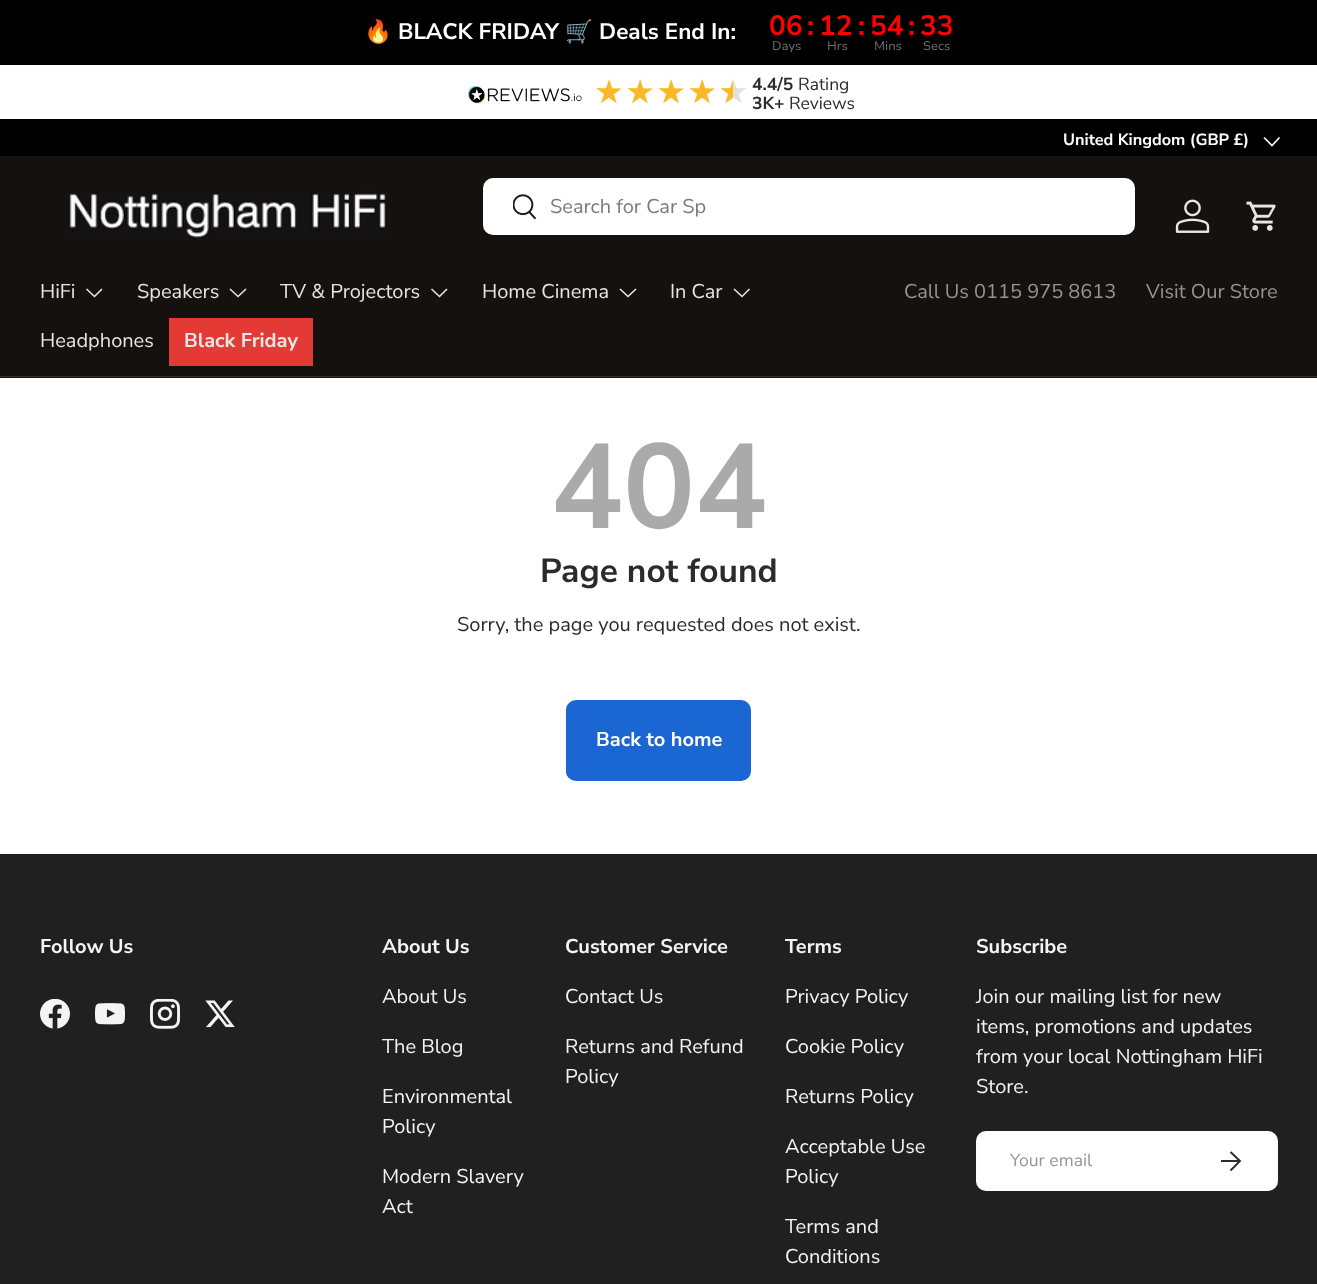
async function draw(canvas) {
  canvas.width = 1317;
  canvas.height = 1284;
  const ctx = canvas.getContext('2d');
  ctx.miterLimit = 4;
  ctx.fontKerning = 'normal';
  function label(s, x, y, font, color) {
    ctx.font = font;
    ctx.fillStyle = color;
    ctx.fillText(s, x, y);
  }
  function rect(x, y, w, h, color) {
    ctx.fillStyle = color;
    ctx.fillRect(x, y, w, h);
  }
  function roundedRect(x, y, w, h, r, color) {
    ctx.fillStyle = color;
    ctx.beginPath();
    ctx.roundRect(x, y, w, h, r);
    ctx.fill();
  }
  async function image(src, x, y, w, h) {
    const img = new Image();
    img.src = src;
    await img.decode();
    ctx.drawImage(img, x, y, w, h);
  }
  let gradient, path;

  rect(0, 0, 1317, 1284, '#fff');
  rect(0, 0, 1317, 65, '#000');
  label('🔥', 364, 39, 'bold 22.5px Noto Color Emoji', '#fff');
  label('BLACK FRIDAY', 398, 39, 'bold 22.5px Nunito Sans', '#fff');
  label('🛒', 565, 39, 'bold 22.5px Noto Color Emoji', '#fff');
  label('Deals End In:', 599, 39, 'bold 22.5px Nunito Sans', '#fff');
  label('06', 769, 35, 'bold 28px Nunito Sans', '#f00');
  label(':', 807, 35, 'bold 28px Nunito Sans', '#f00');
  label('12', 819, 35, 'bold 28px Nunito Sans', '#f00');
  label(':', 858, 35, 'bold 28px Nunito Sans', '#f00');
  label('54', 870, 35, 'bold 28px Nunito Sans', '#f00');
  label(':', 908, 35, 'bold 28px Nunito Sans', '#f00');
  label('33', 920, 35, 'bold 28px Nunito Sans', '#f00');
  label('Days', 772, 50, '12.5px "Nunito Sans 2"', '#707070');
  label('Hrs', 827, 50, '12.5px "Nunito Sans 2"', '#707070');
  label('Mins', 874, 50, '12.5px "Nunito Sans 2"', '#707070');
  label('Secs', 923, 50, '12.5px "Nunito Sans 2"', '#707070');
  await image('assets/img1.png', 468, 86, 114, 18);
  await image('assets/img2.png', 596, 79, 150, 25);
  label('4.4/5', 752, 90, 'bold 17.5px Nunito Sans', '#2a2b2a');
  label('Rating', 798, 90, '17.5px Nunito Sans', '#2a2b2a');
  label('3K+', 752, 109, 'bold 17.5px Nunito Sans', '#2a2b2a');
  label('Reviews', 789, 109, '17.5px Nunito Sans', '#2a2b2a');
  rect(0, 119, 1317, 37, '#000');
  label('United Kingdom (GBP £)', 1063, 145, 'bold 16.25px Nunito Sans', '#fff');
  path = new Path2D('M1279.5 137.5L1272 145.5L1264 137.5');
  ctx.strokeStyle = '#fff';
  ctx.lineWidth = 1.6;
  ctx.stroke(path);
  rect(0, 156, 1317, 222, '#14110f');
  rect(0, 376, 1317, 1, '#34312f');
  await image('assets/img3.png', 65, 191, 325, 50);
  roundedRect(483, 178, 652, 57, 10, '#fff');
  await image('assets/img4.png', 513, 194, 24, 26);
  label('Search for Car Sp', 550, 213, '20px Nunito Sans', '#7a7a7a');
  await image('assets/img5.png', 1175, 199, 35, 34);
  await image('assets/img6.png', 1246, 201, 30, 30);
  label('HiFi', 40, 298, '20px Nunito Sans', '#e6e6e6');
  path = new Path2D('M102 289L94.5 296.5L86.5 289');
  ctx.strokeStyle = '#e6e6e6';
  ctx.stroke(path);
  label('Speakers', 137, 298, '20px Nunito Sans', '#e6e6e6');
  path = new Path2D('M246 289L238 296.5L230 289');
  ctx.stroke(path);
  label('TV & Projectors', 280, 298, '20px Nunito Sans', '#e6e6e6');
  path = new Path2D('M447 289L439.5 296.5L431.5 289');
  ctx.stroke(path);
  label('Home Cinema', 482, 298, '20px Nunito Sans', '#e6e6e6');
  path = new Path2D('M636 289L628 296.5L620 289');
  ctx.stroke(path);
  label('In Car', 670, 298, '20px Nunito Sans', '#e6e6e6');
  path = new Path2D('M749.5 289L742 296.5L734 289');
  ctx.stroke(path);
  label('Headphones', 40, 347, '20px Nunito Sans', '#e6e6e6');
  rect(169, 318, 144, 48, '#e43a36');
  label('Black Friday', 184, 347, 'bold 20px Nunito Sans', '#e6e6e6');
  label('Call Us 0115 975 8613', 904, 298, '20px Nunito Sans', '#959595');
  label('Visit Our Store', 1146, 298, '20px Nunito Sans', '#959595');
  label('404', 551, 528, 'bold 120px Nunito Sans', '#aaa');
  label('Page not found', 540, 582, 'bold 33.5px Nunito Sans', '#2a2b2a');
  label('Sorry, the page you requested does not exist.', 457, 631, '20px Nunito Sans', '#2a2b2a');
  ctx.save();
  ctx.beginPath();
  ctx.roundRect(566, 700, 185, 81, 10);
  ctx.clip();
  gradient = ctx.createLinearGradient(222, 676, 741, 805);
  gradient.addColorStop(0.6, '#4986db');
  gradient.addColorStop(0.6, '#1a66d2');
  gradient.addColorStop(1, '#1a66d2');
  ctx.fillStyle = gradient;
  ctx.fillRect(566, 704, 181, 74);
  ctx.restore();
  ctx.beginPath();
  ctx.roundRect(568, 702, 181, 77, 8);
  ctx.strokeStyle = '#1a66d2';
  ctx.lineWidth = 4;
  ctx.stroke();
  label('Back to home', 596, 746, 'bold 20px Nunito Sans', '#fff');
  rect(0, 854, 1317, 430, '#202020');
  label('Follow Us', 40, 953, 'bold 20px Nunito Sans', '#f4f4f4');
  await image('assets/img7.png', 40, 999, 30, 30);
  await image('assets/img8.png', 95, 1003, 30, 22);
  await image('assets/img9.png', 150, 999, 30, 30);
  await image('assets/img10.png', 205, 1000, 30, 28);
  label('About Us', 382, 953, 'bold 20px Nunito Sans', '#f4f4f4');
  label('About Us', 382, 1003, '20px Nunito Sans', '#f4f4f4');
  label('The Blog', 382, 1053, '20px Nunito Sans', '#f4f4f4');
  label('Environmental', 382, 1103, '20px Nunito Sans', '#f4f4f4');
  label('Policy', 382, 1133, '20px Nunito Sans', '#f4f4f4');
  label('Modern Slavery', 382, 1183, '20px Nunito Sans', '#f4f4f4');
  label('Act', 382, 1213, '20px Nunito Sans', '#f4f4f4');
  label('Customer Service', 565, 953, 'bold 20px Nunito Sans', '#f4f4f4');
  label('Contact Us', 565, 1003, '20px Nunito Sans', '#f4f4f4');
  label('Returns and Refund', 565, 1053, '20px Nunito Sans', '#f4f4f4');
  label('Policy', 565, 1083, '20px Nunito Sans', '#f4f4f4');
  label('Terms', 785, 953, 'bold 20px Nunito Sans', '#f4f4f4');
  label('Privacy Policy', 785, 1003, '20px Nunito Sans', '#f4f4f4');
  label('Cookie Policy', 785, 1053, '20px Nunito Sans', '#f4f4f4');
  label('Returns Policy', 785, 1103, '20px Nunito Sans', '#f4f4f4');
  label('Acceptable Use', 785, 1153, '20px Nunito Sans', '#f4f4f4');
  label('Policy', 785, 1183, '20px Nunito Sans', '#f4f4f4');
  label('Terms and', 785, 1233, '20px Nunito Sans', '#f4f4f4');
  label('Conditions', 785, 1263, '20px Nunito Sans', '#f4f4f4');
  label('Subscribe', 976, 953, 'bold 20px Nunito Sans', '#f4f4f4');
  label('Join our mailing list for new', 976, 1003, '20px Nunito Sans', '#f4f4f4');
  label('items, promotions and updates', 976, 1033, '20px Nunito Sans', '#f4f4f4');
  label('from your local Nottingham HiFi', 976, 1063, '20px Nunito Sans', '#f4f4f4');
  label('Store.', 976, 1093, '20px Nunito Sans', '#f4f4f4');
  roundedRect(976, 1131, 302, 60, 10, '#fff');
  ctx.beginPath();
  ctx.roundRect(978, 1133, 298, 56, 8);
  ctx.strokeStyle = '#f4f4f433';
  ctx.stroke();
  label('Your email', 1010, 1166, '17.5px Nunito Sans', '#959595');
  path = new Path2D('M1221 1161H1239M1230.5 1152L1240 1161L1230.5 1170.5');
  ctx.strokeStyle = '#2a2b2a';
  ctx.lineWidth = 1.9;
  ctx.stroke(path);
}

draw(document.querySelector('canvas'));
